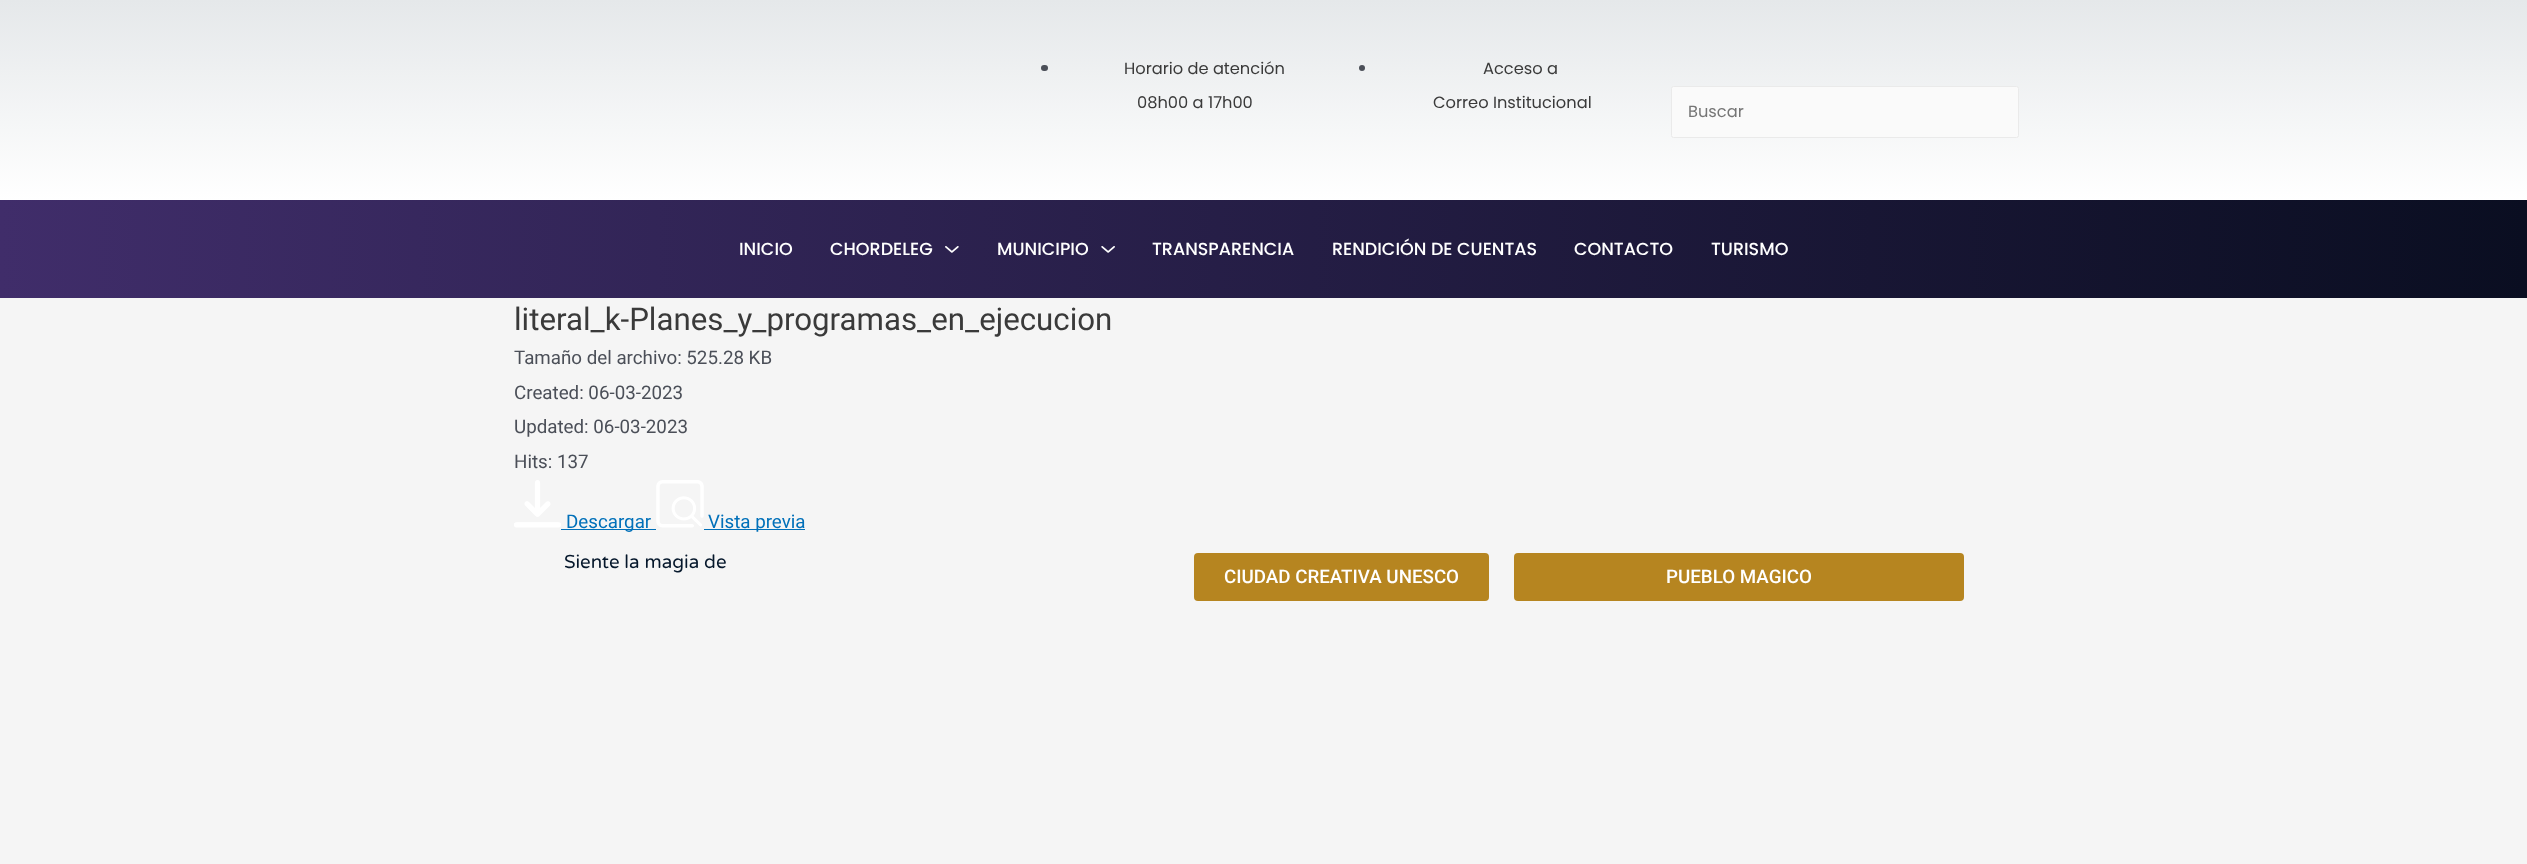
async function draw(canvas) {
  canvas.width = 2527;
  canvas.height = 864;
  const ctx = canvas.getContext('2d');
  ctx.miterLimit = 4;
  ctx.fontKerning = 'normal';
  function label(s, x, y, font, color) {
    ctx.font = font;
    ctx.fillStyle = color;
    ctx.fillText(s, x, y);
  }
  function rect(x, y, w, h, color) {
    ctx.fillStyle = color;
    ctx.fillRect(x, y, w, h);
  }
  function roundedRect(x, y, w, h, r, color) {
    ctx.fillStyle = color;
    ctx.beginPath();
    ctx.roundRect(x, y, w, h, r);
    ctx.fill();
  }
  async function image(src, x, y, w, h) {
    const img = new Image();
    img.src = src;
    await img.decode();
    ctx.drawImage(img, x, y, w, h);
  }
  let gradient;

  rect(0, 0, 2527, 864, '#f5f5f5');
  gradient = ctx.createLinearGradient(1264, 0, 1264, 200);
  gradient.addColorStop(0, '#e5e8ea');
  gradient.addColorStop(1, '#fff');
  ctx.fillStyle = gradient;
  ctx.fillRect(0, 0, 2527, 200);
  roundedRect(1041, 65, 7, 6, 3, '#4b4f58');
  label('Horario de atención', 1124, 74, '16.25px Poppins', '#3a3a3a');
  label('08h00 a 17h00', 1137, 108, '16.25px Poppins', '#3a3a3a');
  ctx.fillStyle = '#4b4f58';
  ctx.beginPath();
  ctx.arc(1362, 68, 3, 0, 2 * Math.PI);
  ctx.fill();
  label('Acceso a', 1483, 74, '16.25px Poppins', '#3a3a3a');
  label('Correo Institucional', 1433, 108, '16.25px Poppins', '#3a3a3a');
  ctx.fillStyle = '#fafafa';
  ctx.beginPath();
  ctx.roundRect(1671.5, 86.5, 347, 51, 2);
  ctx.fill();
  ctx.strokeStyle = '#eaeaea';
  ctx.stroke();
  label('Buscar', 1688, 117, '16.25px Poppins', '#757575');
  gradient = ctx.createLinearGradient(0, 249, 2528, 249);
  gradient.addColorStop(0, '#402d6a');
  gradient.addColorStop(1, '#0a0e21');
  ctx.fillStyle = gradient;
  ctx.fillRect(0, 200, 2527, 98);
  label('INICIO', 739, 255, '500 17.5px Poppins', '#fff');
  label('CHORDELEG', 830, 255, '500 17.5px Poppins', '#fff');
  await image('assets/img1.png', 945, 246, 14, 7);
  label('MUNICIPIO', 997, 255, '500 17.5px Poppins', '#fff');
  await image('assets/img2.png', 1101, 246, 14, 7);
  label('TRANSPARENCIA', 1152, 255, '500 17.5px Poppins', '#fff');
  label('RENDICIÓN DE CUENTAS', 1332, 255, '500 17.5px Poppins', '#fff');
  label('CONTACTO', 1574, 255, '500 17.5px Poppins', '#fff');
  label('TURISMO', 1711, 255, '500 17.5px Poppins', '#fff');
  label('literal_k-Planes_y_programas_en_ejecucion', 514, 330, '31.25px Roboto', '#3a3a3a');
  label('Tamaño del archivo: 525.28 KB', 514, 364, '18.75px Roboto', '#4b4f58');
  label('Created: 06-03-2023', 514, 399, '18.75px Roboto', '#4b4f58');
  label('Updated: 06-03-2023', 514, 433, '18.75px Roboto', '#4b4f58');
  label('Hits: 137', 514, 468, '18.75px Roboto', '#4b4f58');
  await image('assets/img3.png', 514, 480, 47, 48);
  rect(561, 529, 95, 1, '#0170b9');
  label('Descargar', 566, 528, '18.75px Roboto', '#0170b9');
  await image('assets/img4.png', 656, 480, 48, 48);
  rect(704, 529, 101, 1, '#0170b9');
  label('Vista previa', 708, 528, '18.75px Roboto', '#0170b9');
  label('Siente la magia de', 564, 568, '18.75px Varela Round', '#05172b');
  roundedRect(1194, 553, 295, 48, 4, '#b68520');
  label('CIUDAD CREATIVA UNESCO', 1224, 583, '500 18.75px Roboto', '#fff');
  roundedRect(1514, 553, 450, 48, 4, '#b68520');
  label('PUEBLO MAGICO', 1666, 583, '500 18.75px Roboto', '#fff');
}

draw(document.querySelector('canvas'));
